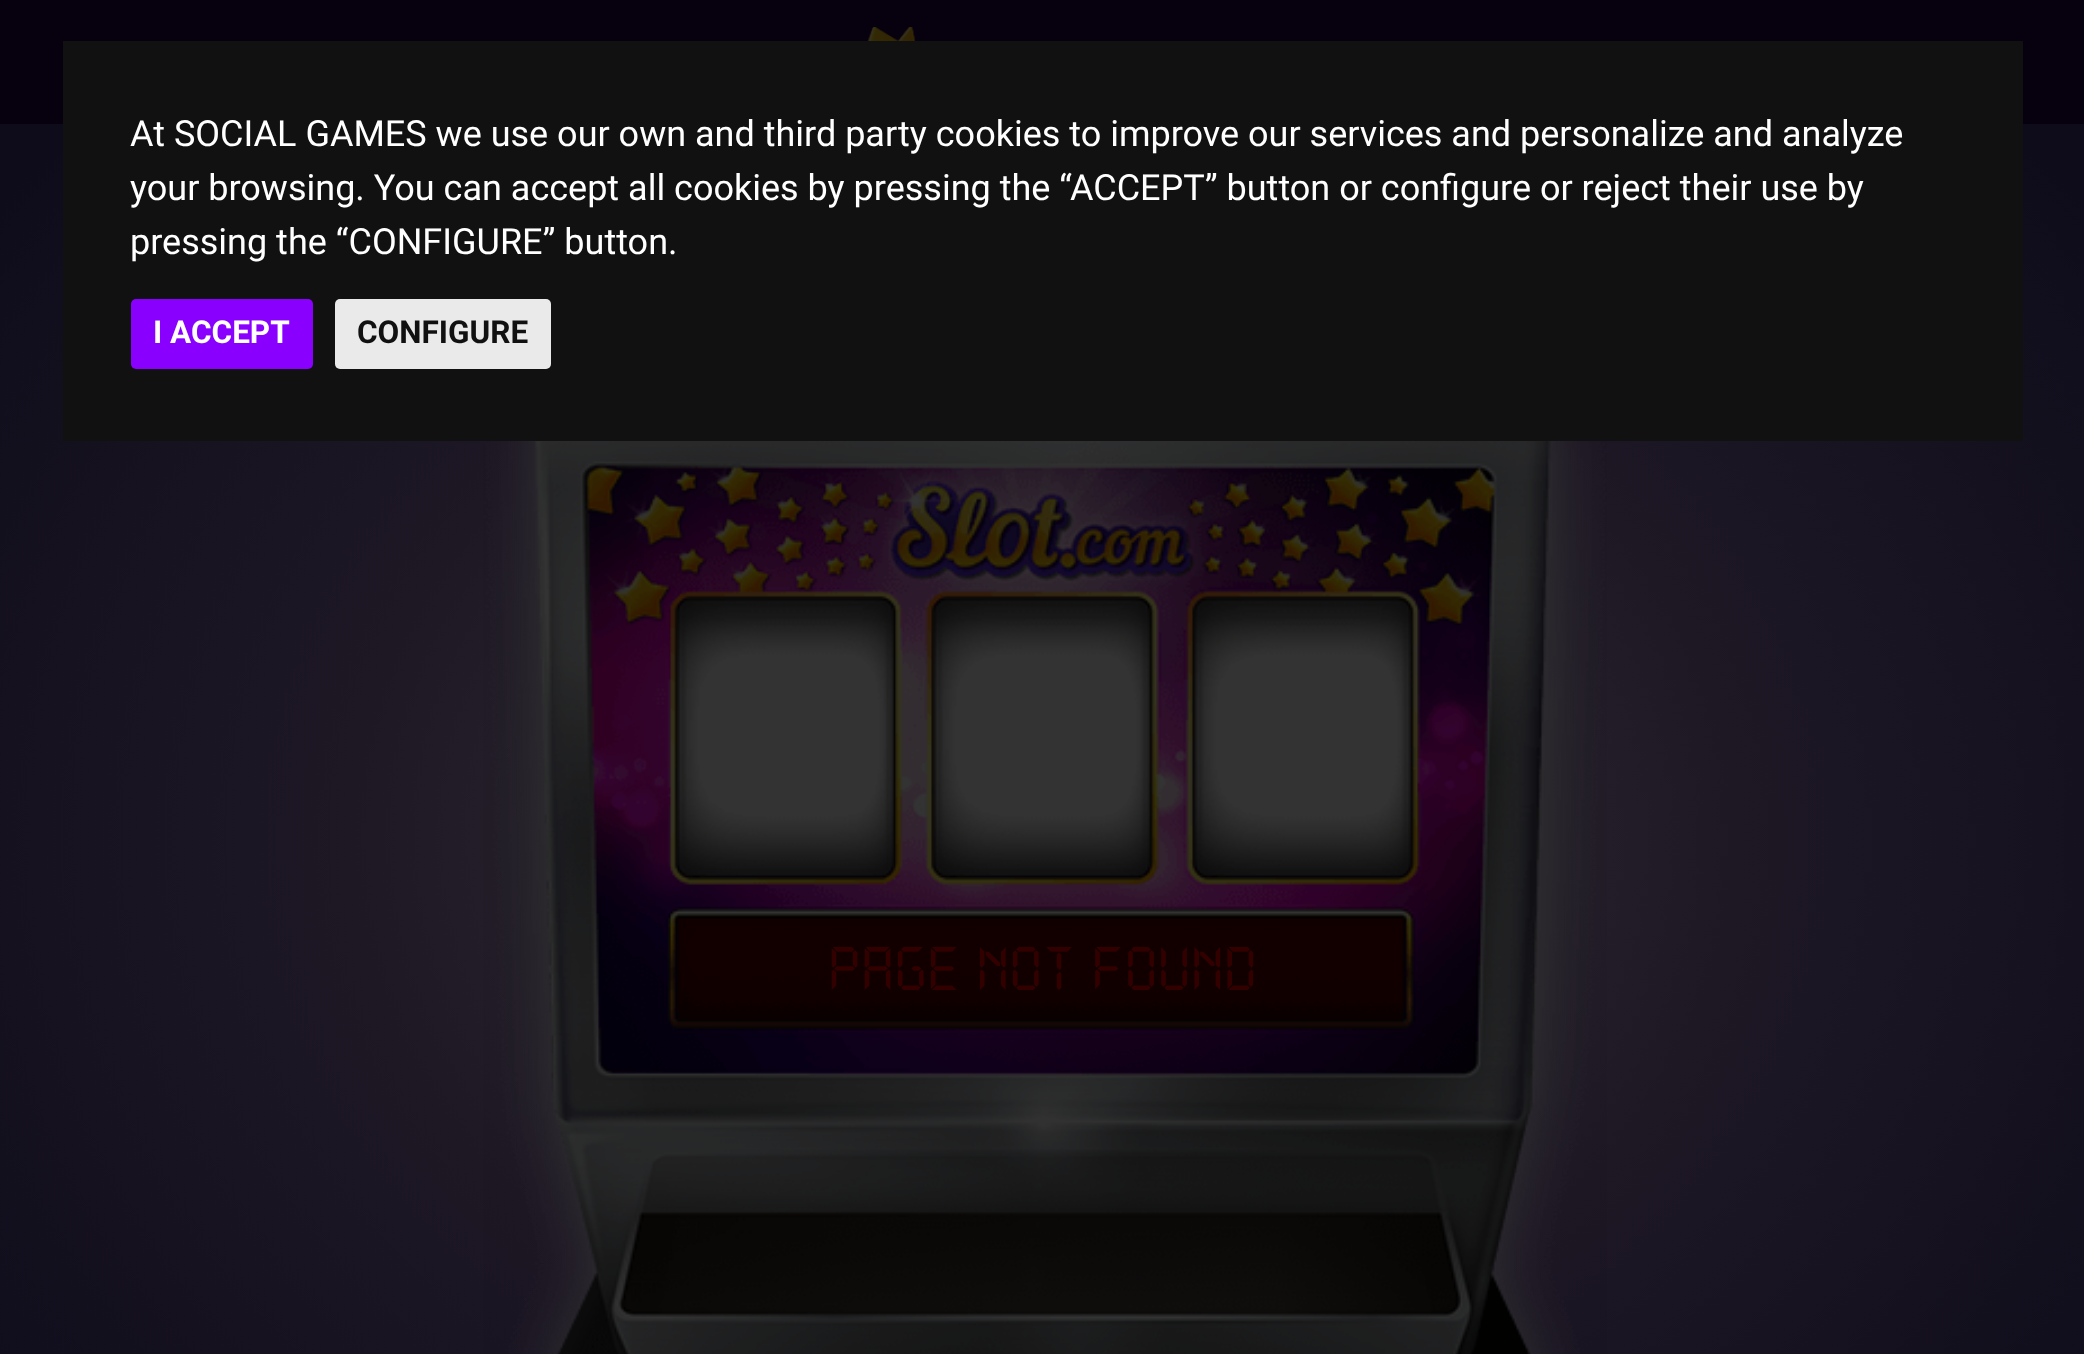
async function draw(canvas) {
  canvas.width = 2084;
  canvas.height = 1354;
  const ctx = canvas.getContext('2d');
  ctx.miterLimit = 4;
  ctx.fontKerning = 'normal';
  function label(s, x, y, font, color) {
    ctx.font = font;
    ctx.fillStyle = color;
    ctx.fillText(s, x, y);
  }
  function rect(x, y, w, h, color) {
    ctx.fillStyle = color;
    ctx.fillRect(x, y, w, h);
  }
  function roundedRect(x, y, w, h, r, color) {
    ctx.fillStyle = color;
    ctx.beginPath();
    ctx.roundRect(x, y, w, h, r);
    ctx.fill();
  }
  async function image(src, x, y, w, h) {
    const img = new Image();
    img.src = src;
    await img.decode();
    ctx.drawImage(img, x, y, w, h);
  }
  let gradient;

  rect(0, 0, 2084, 1354, '#fff');
  rect(0, 0, 2084, 124, '#07000f');
  await image('assets/img1.png', 867, 27, 49, 14);
  gradient = ctx.createRadialGradient(1043, 1042.57, 0, 1043, 1042.57, 1475);
  gradient.addColorStop(0, '#333');
  gradient.addColorStop(0.47, '#1e1825');
  gradient.addColorStop(0.89, '#0e0c1b');
  ctx.fillStyle = gradient;
  ctx.beginPath();
  ctx.rect(0, 124, 2084, 1230);
  ctx.save();
  ctx.clip();
  ctx.scale(1, 1187 / 1475);
  ctx.fillRect(0, 0, 2084, 1683);
  ctx.restore();
  rect(63, 41, 1960, 400, '#111');
  label('At SOCIAL GAMES we use our own and third party cookies to improve our services and personalize and analyze', 130, 146, '36px Roboto', '#fff');
  label('your browsing. You can accept all cookies by pressing the “ACCEPT” button or configure or reject their use by', 130, 200, '36px Roboto', '#fff');
  label('pressing the “CONFIGURE” button.', 130, 254, '36px Roboto', '#fff');
  roundedRect(131, 299, 182, 70, 5, '#8900ff');
  label('I ACCEPT', 153, 343, 'bold 31.5px Roboto', '#fff');
  roundedRect(335, 299, 216, 70, 5, '#eaeaea');
  label('CONFIGURE', 357, 343, 'bold 31.5px Roboto', '#111');
  await image('assets/img2.png', 483, 441, 1124, 913);
  label('Page not found', 828, 990, '67.5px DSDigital', '#300');
}

draw(document.querySelector('canvas'));
